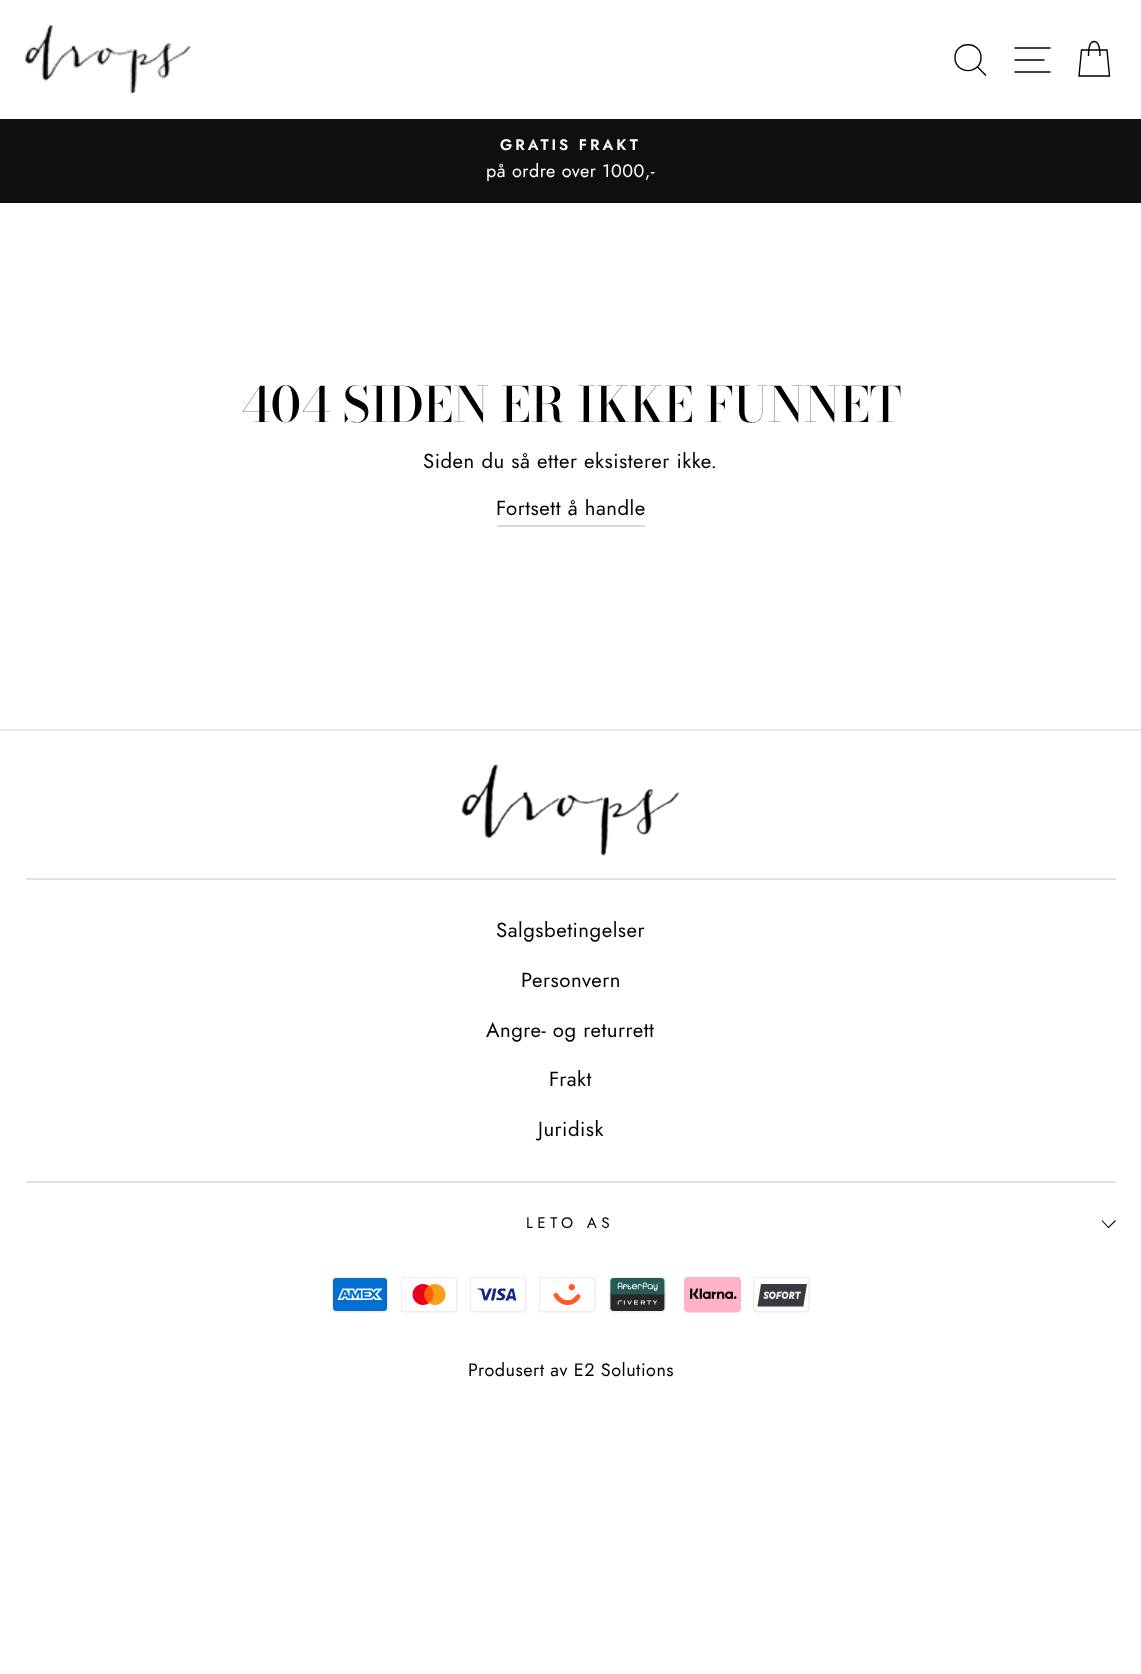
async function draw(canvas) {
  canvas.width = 1141;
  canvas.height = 1674;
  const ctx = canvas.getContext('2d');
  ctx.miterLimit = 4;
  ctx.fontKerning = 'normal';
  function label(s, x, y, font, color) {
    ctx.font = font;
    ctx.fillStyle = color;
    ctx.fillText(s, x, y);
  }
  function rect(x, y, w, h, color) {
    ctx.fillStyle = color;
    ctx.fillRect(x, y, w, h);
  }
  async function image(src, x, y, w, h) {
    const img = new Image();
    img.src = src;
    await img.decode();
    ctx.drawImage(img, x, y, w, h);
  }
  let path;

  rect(0, 0, 1141, 1674, '#fff');
  await image('assets/img1.png', 25, 25, 166, 68);
  path = new Path2D('M981 57.5C981 75 955 75 955 57.5C955 40.5 981 40.5 981 57.5ZM986 75.5L977.5 67');
  ctx.strokeStyle = '#000';
  ctx.lineWidth = 1.4;
  ctx.stroke(path);
  path = new Path2D('M1014.5 48H1050.5M1014.5 60H1044.5M1014.5 72H1050.5');
  ctx.stroke(path);
  path = new Path2D('M1088.5 56C1088.5 44.5 1091 41.5 1094 41.5C1097.5 41.5 1100 44.5 1100 56M1081.5 50H1107L1109.5 76H1079Z');
  ctx.stroke(path);
  rect(0, 119, 1141, 84, '#0f0f0f');
  ctx.letterSpacing = '3px';
  label('GRATIS FRAKT', 500, 150, '600 15.25px Jost', '#fff');
  ctx.letterSpacing = '0.5px';
  label('på ordre over 1000,-', 486, 177, '18px Jost', '#fff');
  ctx.letterSpacing = '0px';
  label('404 SIDEN ER IKKE FUNNET', 241, 422, '500 48.5px Bodoni Moda', '#000');
  ctx.letterSpacing = '0.5px';
  label('Siden du så etter eksisterer ikke.', 423, 468, '20.4px Jost', '#000');
  rect(497, 525, 148, 2, '#d9d9d9');
  label('Fortsett å handle', 496, 515, '20.4px Jost', '#000');
  rect(0, 729, 1141, 2, '#e8e8e1');
  await image('assets/img2.png', 461, 764, 219, 92);
  rect(26, 878, 1090, 2, '#e0e0e0');
  label('Salgsbetingelser', 496, 937, '20.4px Jost', '#000');
  label('Personvern', 521, 987, '20.4px Jost', '#000');
  label('Angre- og returrett', 486, 1037, '20.4px Jost', '#000');
  label('Frakt', 549, 1086, '20.4px Jost', '#000');
  label('Juridisk', 538, 1136, '20.4px Jost', '#000');
  rect(26, 1181, 1090, 2, '#e0e0e0');
  ctx.letterSpacing = '4.5px';
  label('LETO AS', 526, 1228, '15.25px Jost', '#000');
  path = new Path2D('M1102 1220.5L1108.5 1227.5L1115.5 1220.5');
  ctx.lineWidth = 1.1;
  ctx.stroke(path);
  await image('assets/img3.png', 332, 1277, 57, 36);
  await image('assets/img4.png', 401, 1277, 57, 36);
  await image('assets/img5.png', 470, 1277, 57, 36);
  await image('assets/img6.png', 539, 1277, 57, 36);
  await image('assets/img7.png', 609, 1277, 57, 36);
  await image('assets/img8.png', 684, 1277, 57, 36);
  await image('assets/img9.png', 753, 1277, 57, 36);
  ctx.letterSpacing = '0.5px';
  label('Produsert av E2 Solutions', 468, 1376, '18px Jost', '#000');
}

draw(document.querySelector('canvas'));
